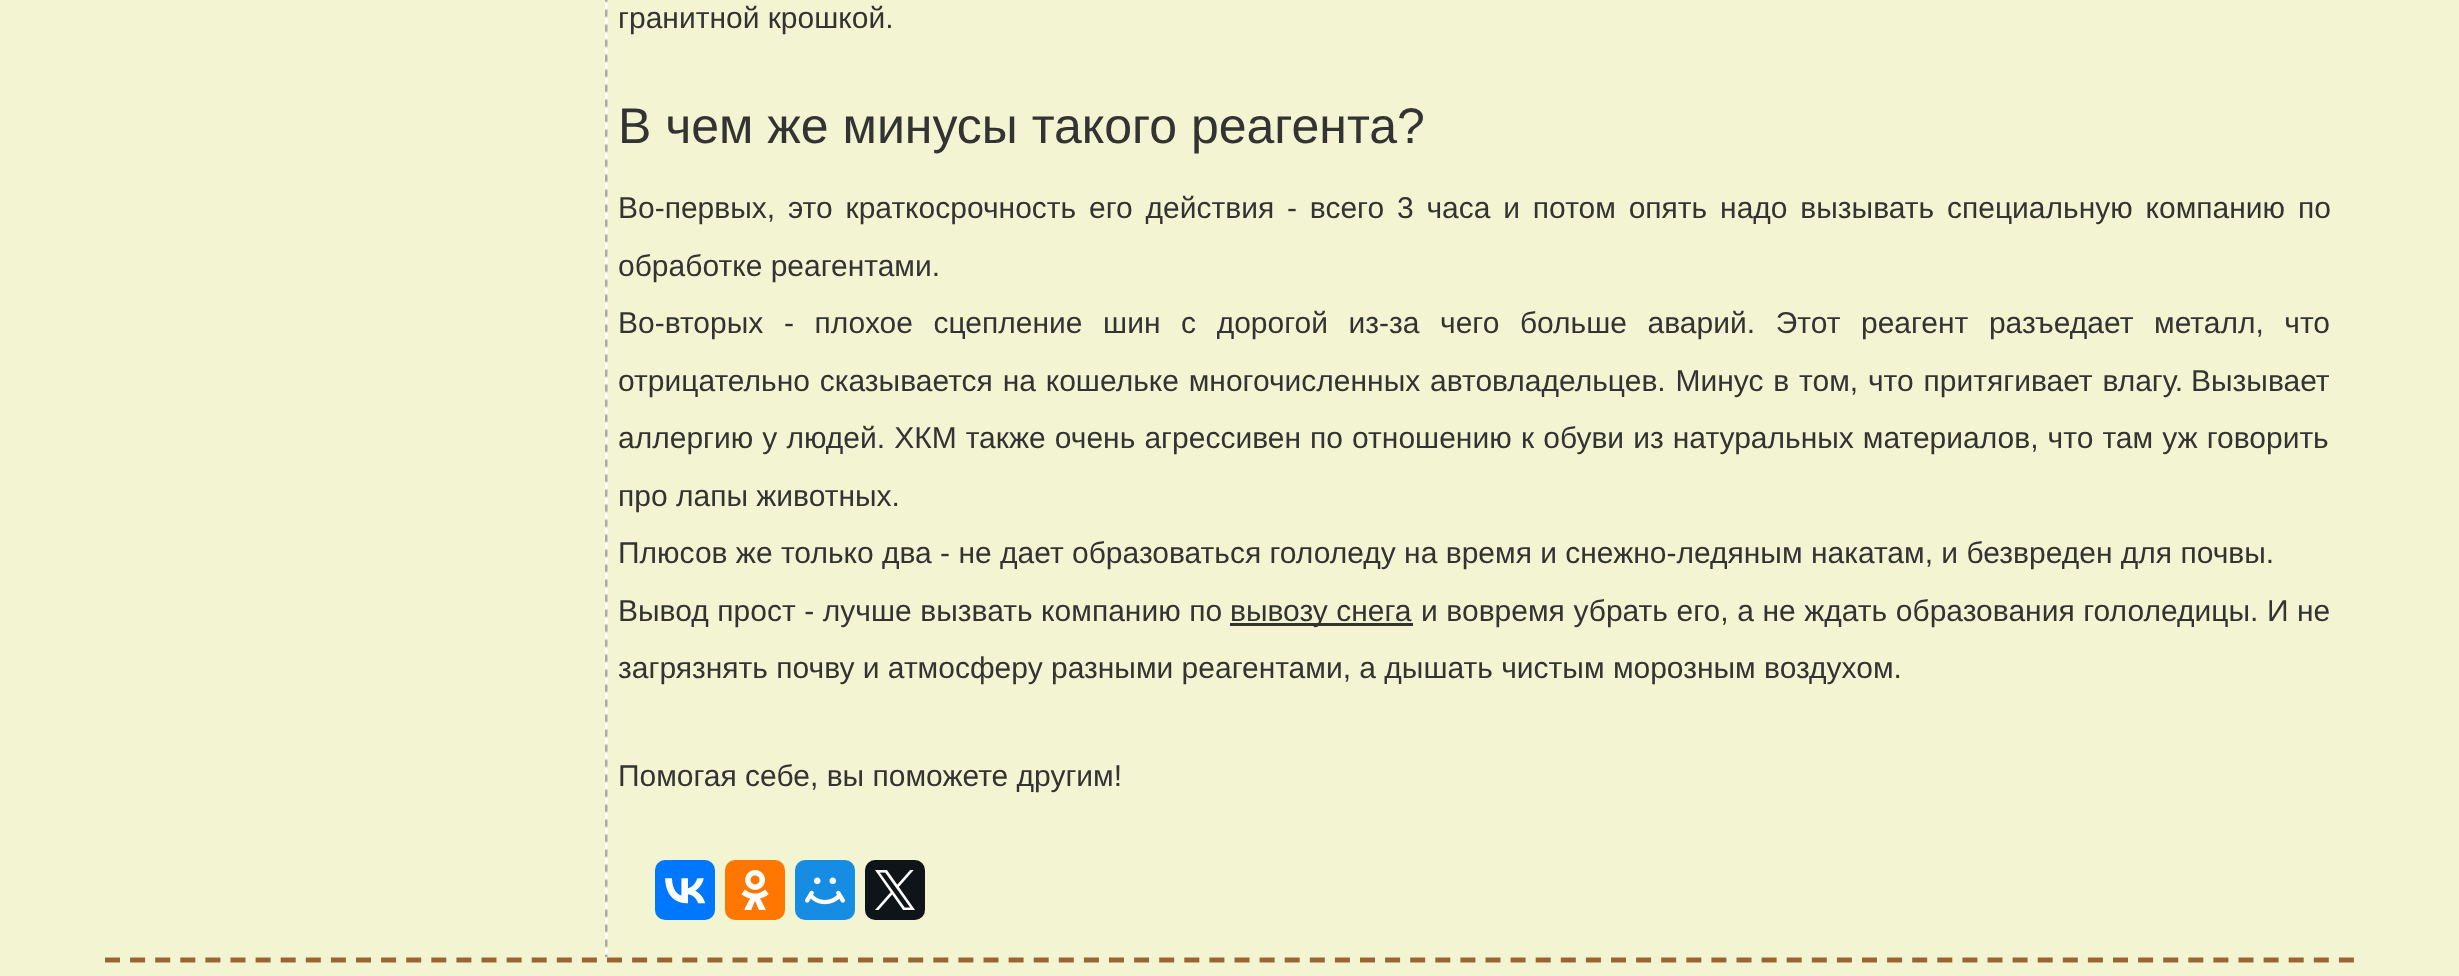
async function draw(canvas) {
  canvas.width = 2459;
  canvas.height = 976;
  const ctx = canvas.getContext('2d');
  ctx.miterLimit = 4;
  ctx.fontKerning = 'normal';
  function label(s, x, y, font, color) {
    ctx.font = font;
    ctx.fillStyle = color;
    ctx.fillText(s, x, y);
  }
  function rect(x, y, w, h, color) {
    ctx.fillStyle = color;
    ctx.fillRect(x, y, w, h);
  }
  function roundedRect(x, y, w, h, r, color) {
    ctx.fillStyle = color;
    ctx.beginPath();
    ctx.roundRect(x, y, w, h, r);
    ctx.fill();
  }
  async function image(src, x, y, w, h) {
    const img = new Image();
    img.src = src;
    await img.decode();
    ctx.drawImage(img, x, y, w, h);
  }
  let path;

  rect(0, 0, 2459, 976, '#f3f4d2');
  await image('assets/img1.png', 605, 0, 3, 957);
  label('гранитной крошкой.', 618, 28, '30px Liberation Sans', '#333');
  label('В чем же минусы такого реагента?', 618, 143, '50px Liberation Sans', '#333');
  ctx.wordSpacing = '4.5px';
  label('Во-первых, это краткосрочность его действия - всего 3 часа и потом опять надо вызывать специальную компанию по', 618, 218, '30px Liberation Sans', '#333');
  ctx.wordSpacing = '0px';
  label('обработке реагентами.', 618, 276, '30px Liberation Sans', '#333');
  ctx.wordSpacing = '12.25px';
  label('Во-вторых - плохое сцепление шин с дорогой из-за чего больше аварий. Этот реагент разъедает металл, что', 618, 333, '30px Liberation Sans', '#333');
  ctx.wordSpacing = '1.5px';
  label('отрицательно сказывается на кошельке многочисленных автовладельцев. Минус в том, что притягивает влагу.', 618, 391, '30px Liberation Sans', '#333');
  ctx.wordSpacing = '0px';
  label('Вызывает', 2191, 391, '30px Liberation Sans', '#333');
  ctx.wordSpacing = '0.75px';
  label('аллергию у людей. ХКМ также очень агрессивен по отношению', 618, 448, '30px Liberation Sans', '#333');
  label('к обуви из натуральных материалов, что там уж говорить', 1521, 448, '30px Liberation Sans', '#333');
  ctx.wordSpacing = '0px';
  label('про лапы животных.', 618, 506, '30px Liberation Sans', '#333');
  label('Плюсов же только два - не дает образоваться гололеду на время и снежно-ледяным накатам, и безвреден для почвы.', 618, 563, '30px Liberation Sans', '#333');
  ctx.wordSpacing = '0.25px';
  label('Вывод прост - лучше вызвать компанию по', 618, 621, '30px Liberation Sans', '#333');
  rect(1230, 623, 183, 3, '#333');
  ctx.wordSpacing = '0px';
  label('вывозу снега', 1230, 621, '30px Liberation Sans', '#333');
  ctx.wordSpacing = '0.25px';
  label('и вовремя убрать его, а не ждать образования гололедицы. И не', 1421, 621, '30px Liberation Sans', '#333');
  ctx.wordSpacing = '0px';
  label('загрязнять почву и атмосферу разными реагентами, а дышать чистым морозным воздухом.', 618, 678, '30px Liberation Sans', '#333');
  label('Помогая себе, вы поможете другим!', 618, 786, '30px Liberation Sans', '#333');
  roundedRect(655, 860, 60, 60, 10, '#07f');
  await image('assets/img2.png', 665, 878, 41, 26);
  roundedRect(725, 860, 60, 60, 10, '#f70');
  await image('assets/img3.png', 741, 870, 28, 40);
  roundedRect(795, 860, 60, 60, 10, '#168de2');
  await image('assets/img4.png', 805, 877, 40, 28);
  roundedRect(865, 860, 60, 60, 10, '#0f1419');
  await image('assets/img5.png', 875, 870, 40, 40);
  path = new Path2D('M105 960H2355');
  ctx.strokeStyle = '#963';
  ctx.lineWidth = 5;
  ctx.setLineDash([15, 10.1]);
  ctx.stroke(path);
}

draw(document.querySelector('canvas'));
